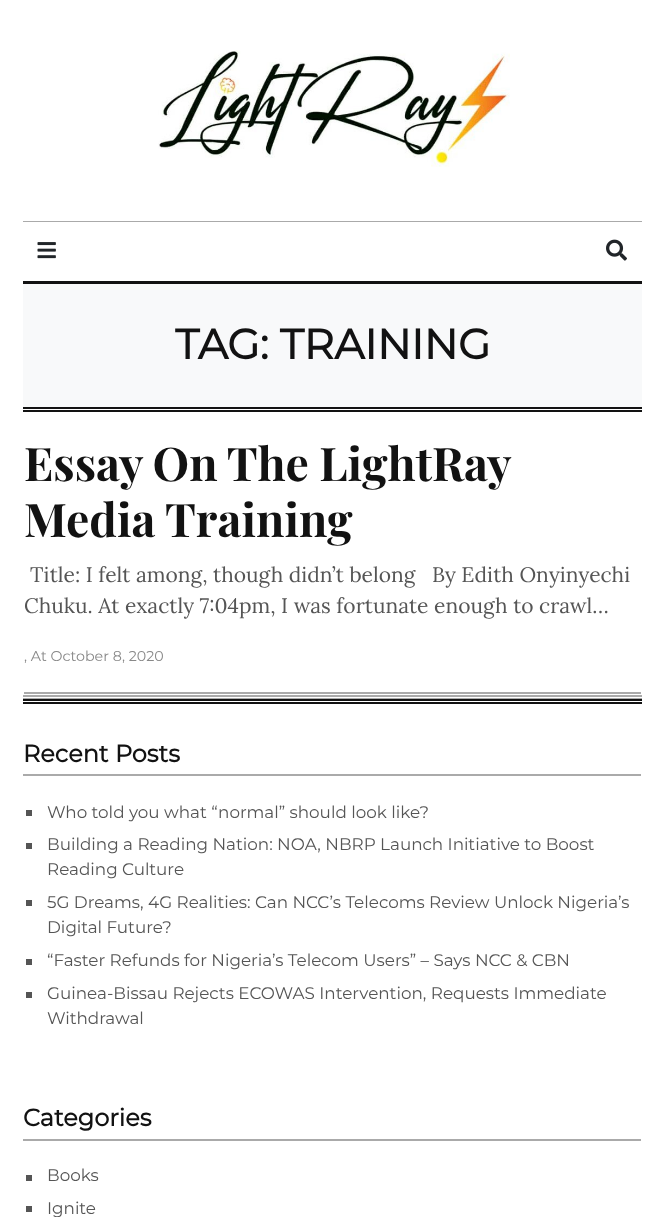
async function draw(canvas) {
  canvas.width = 664;
  canvas.height = 1217;
  const ctx = canvas.getContext('2d');
  ctx.miterLimit = 4;
  ctx.fontKerning = 'normal';
  function label(s, x, y, font, color) {
    ctx.font = font;
    ctx.fillStyle = color;
    ctx.fillText(s, x, y);
  }
  function rect(x, y, w, h, color) {
    ctx.fillStyle = color;
    ctx.fillRect(x, y, w, h);
  }
  async function image(src, x, y, w, h) {
    const img = new Image();
    img.src = src;
    await img.decode();
    ctx.drawImage(img, x, y, w, h);
  }

  rect(0, 0, 664, 1217, '#fff');
  await image('assets/img1.png', 158, 50, 352, 117);
  rect(23, 221, 619, 1, '#aaa');
  await image('assets/img2.png', 37, 242, 19, 17);
  await image('assets/img3.png', 606, 239, 21, 22);
  rect(23, 281, 619, 3, '#121212');
  rect(23, 284, 619, 123, '#f8f9fa');
  label('TAG: TRAINING', 175, 359, 'bold 42px Montserrat', '#121212');
  rect(23, 407, 619, 2, '#121212');
  rect(23, 410, 619, 2, '#121212');
  ctx.wordSpacing = '-0.5px';
  label('Essay On The LightRay', 24, 481, 'bold 46.25px Playfair Display', '#121212');
  ctx.wordSpacing = '0px';
  label('Media Training', 24, 537, 'bold 46.25px Playfair Display', '#121212');
  label('Title: I felt among, though didn’t belong   By Edith Onyinyechi', 30, 582, '21px Lora', '#555');
  label('Chuku. At exactly 7:04pm, I was fortunate enough to crawl…', 24, 613, '21px Lora', '#555');
  label(', At October 8, 2020', 24, 661, '100 14.25px Montserrat', '#888');
  rect(24, 692, 617, 2, '#aaa');
  rect(23, 695, 619, 2, '#aaa');
  rect(23, 698, 619, 1, '#aaa');
  rect(23, 699, 619, 2, '#121212');
  rect(23, 702, 619, 2, '#121212');
  rect(23, 774, 618, 2, '#aaa');
  label('Recent Posts', 23, 762, 'bold 24px Montserrat', '#121212');
  rect(26, 810, 6, 6, '#555');
  label('Who told you what “normal” should look like?', 47, 818, '100 16.8px Montserrat', '#555');
  rect(26, 843, 6, 6, '#555');
  label('Building a Reading Nation: NOA, NBRP Launch Initiative to Boost', 47, 850, '100 16.8px Montserrat', '#555');
  label('Reading Culture', 47, 875, '100 16.8px Montserrat', '#555');
  rect(26, 900, 6, 6, '#555');
  label('5G Dreams, 4G Realities: Can NCC’s Telecoms Review Unlock Nigeria’s', 47, 908, '100 16.8px Montserrat', '#555');
  label('Digital Future?', 47, 933, '100 16.8px Montserrat', '#555');
  rect(26, 959, 6, 6, '#555');
  label('“Faster Refunds for Nigeria’s Telecom Users” – Says NCC & CBN', 47, 966, '100 16.8px Montserrat', '#555');
  rect(26, 992, 6, 6, '#555');
  label('Guinea-Bissau Rejects ECOWAS Intervention, Requests Immediate', 47, 999, '100 16.8px Montserrat', '#555');
  label('Withdrawal', 47, 1024, '100 16.8px Montserrat', '#555');
  rect(23, 1139, 618, 2, '#aaa');
  label('Categories', 23, 1126, 'bold 24px Montserrat', '#121212');
  rect(26, 1175, 6, 6, '#555');
  label('Books', 47, 1181, '100 16.8px Montserrat', '#555');
  rect(26, 1206, 6, 6, '#555');
  label('Ignite', 47, 1214, '100 16.8px Montserrat', '#555');
}

draw(document.querySelector('canvas'));
